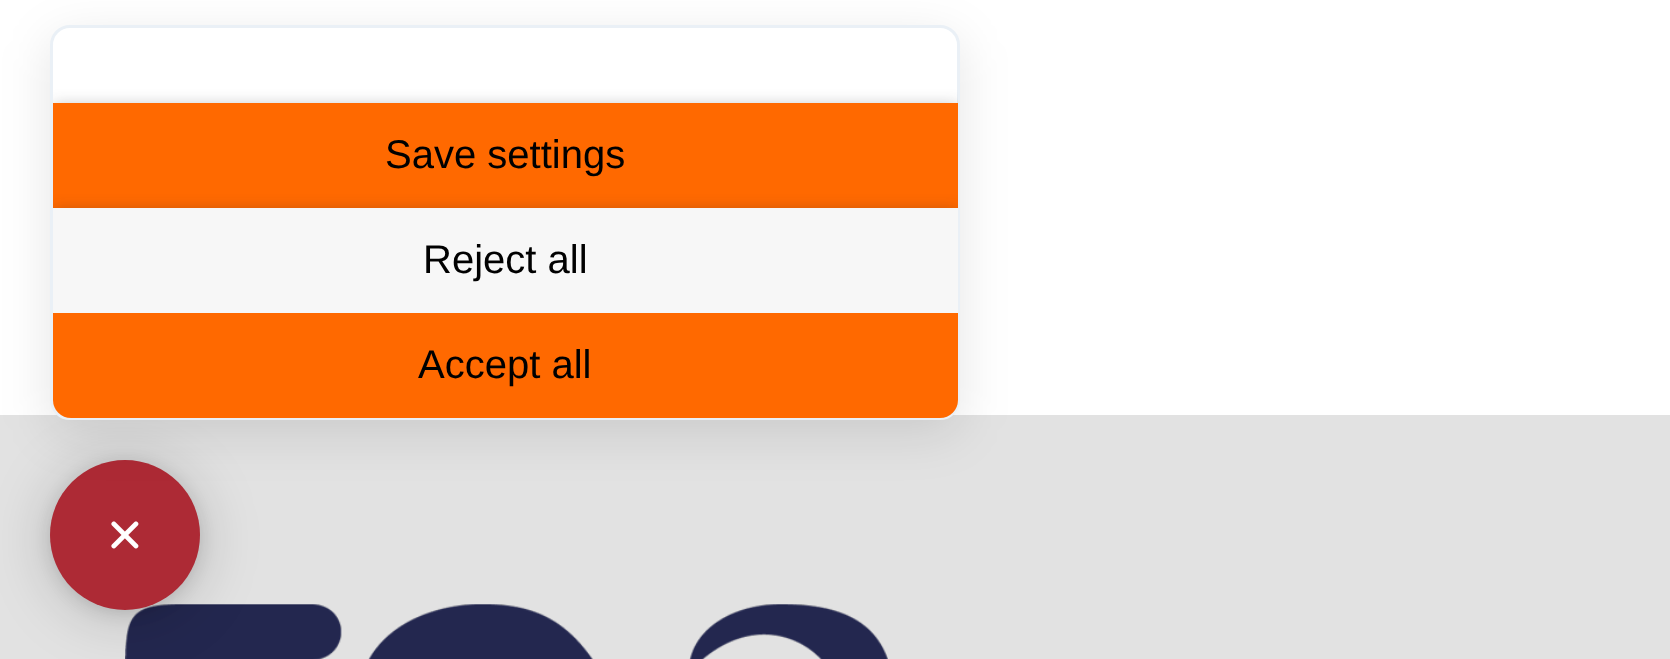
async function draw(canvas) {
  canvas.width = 1670;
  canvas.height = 659;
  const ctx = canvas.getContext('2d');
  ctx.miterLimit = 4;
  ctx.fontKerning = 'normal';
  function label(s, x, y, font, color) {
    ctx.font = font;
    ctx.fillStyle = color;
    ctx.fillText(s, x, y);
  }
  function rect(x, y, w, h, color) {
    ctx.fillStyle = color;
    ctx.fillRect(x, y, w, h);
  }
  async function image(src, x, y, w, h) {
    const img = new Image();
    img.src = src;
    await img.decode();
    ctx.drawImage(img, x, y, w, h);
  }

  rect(0, 0, 1670, 659, '#fff');
  rect(0, 415, 1670, 244, '#e2e2e2');
  await image('assets/img2.png', 125, 604, 763, 55);
  ctx.fillStyle = '#00000033';
  ctx.filter = 'blur(30px)';
  ctx.beginPath();
  ctx.roundRect(50, 465, 150, 150, 75);
  ctx.fill();
  ctx.filter = 'none';
  ctx.fillStyle = '#0000001a';
  ctx.filter = 'blur(7.5px)';
  ctx.beginPath();
  ctx.roundRect(50, 463, 150, 150, 75);
  ctx.fill();
  ctx.filter = 'none';
  ctx.fillStyle = '#ad2a35';
  ctx.beginPath();
  ctx.arc(125, 535, 75, 0, 2 * Math.PI);
  ctx.fill();
  ctx.fillStyle = '#0000001a';
  ctx.filter = 'blur(25px)';
  ctx.beginPath();
  ctx.roundRect(50, 38, 910, 395, 20);
  ctx.fill();
  ctx.filter = 'none';
  ctx.fillStyle = '#fff';
  ctx.beginPath();
  ctx.roundRect(51.5, 26.5, 907, 392, 18.5);
  ctx.fill();
  ctx.strokeStyle = '#eaf0f6';
  ctx.lineWidth = 3;
  ctx.stroke();
  ctx.save();
  ctx.beginPath();
  ctx.roundRect(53, 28, 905, 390, 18);
  ctx.clip();
  ctx.fillStyle = '#20212447';
  ctx.filter = 'blur(7.5px)';
  ctx.beginPath();
  ctx.rect(53, 105, 905, 105);
  ctx.fill();
  ctx.filter = 'none';
  ctx.restore();
  rect(53, 103, 905, 105, '#ff6900');
  label('Save settings', 385, 168, '40px Liberation Sans', '#000');
  ctx.save();
  ctx.beginPath();
  ctx.roundRect(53, 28, 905, 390, 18);
  ctx.clip();
  ctx.fillStyle = '#20212447';
  ctx.filter = 'blur(7.5px)';
  ctx.beginPath();
  ctx.rect(53, 210, 905, 105);
  ctx.fill();
  ctx.filter = 'none';
  ctx.restore();
  rect(53, 208, 905, 105, '#f7f7f7');
  label('Reject all', 423, 273, '40px Liberation Sans', '#000');
  ctx.fillStyle = '#ff6900';
  ctx.beginPath();
  ctx.roundRect(53, 313, 905, 105, [0, 0, 18, 18]);
  ctx.fill();
  label('Accept all', 418, 378, '40px Liberation Sans', '#000');
  await image('assets/img1.png', 111, 521, 28, 28);
}

draw(document.querySelector('canvas'));
